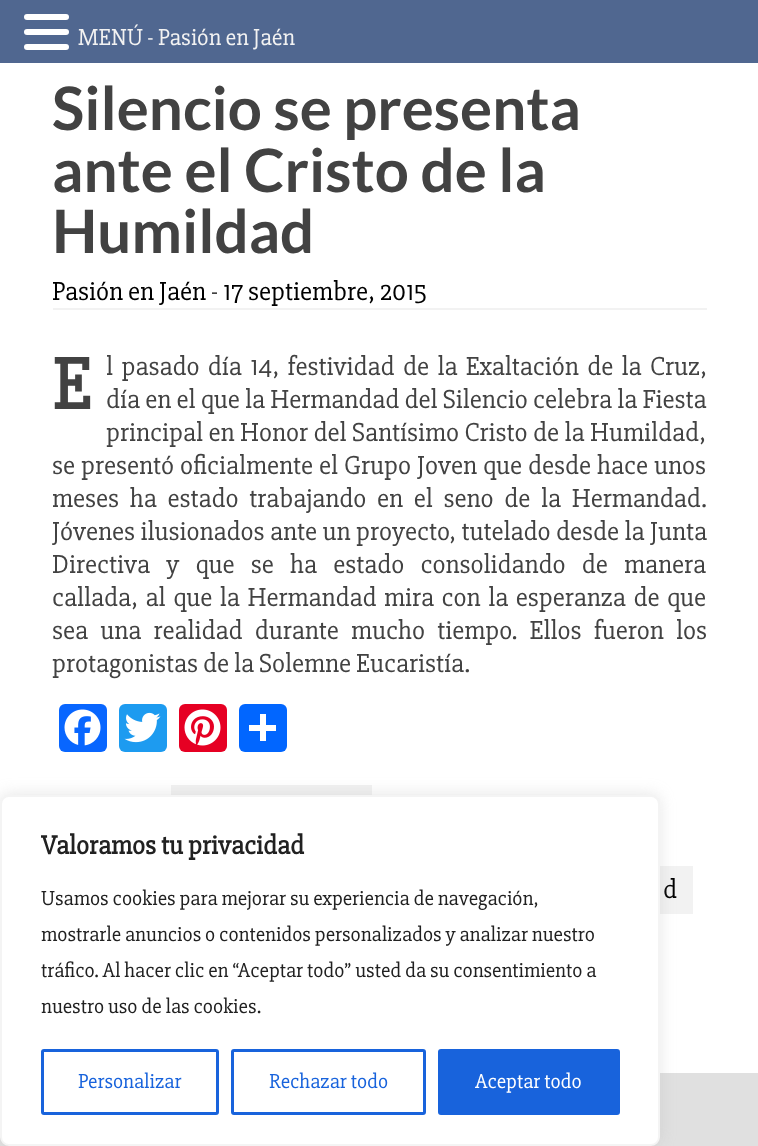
async function draw(canvas) {
  canvas.width = 758;
  canvas.height = 1146;
  const ctx = canvas.getContext('2d');
  ctx.miterLimit = 4;
  ctx.fontKerning = 'normal';
  function label(s, x, y, font, color) {
    ctx.font = font;
    ctx.fillStyle = color;
    ctx.fillText(s, x, y);
  }
  function rect(x, y, w, h, color) {
    ctx.fillStyle = color;
    ctx.fillRect(x, y, w, h);
  }
  function roundedRect(x, y, w, h, r, color) {
    ctx.fillStyle = color;
    ctx.beginPath();
    ctx.roundRect(x, y, w, h, r);
    ctx.fill();
  }
  async function image(src, x, y, w, h) {
    const img = new Image();
    img.src = src;
    await img.decode();
    ctx.drawImage(img, x, y, w, h);
  }

  rect(0, 0, 758, 1146, '#fff');
  rect(0, 0, 758, 63, '#506790');
  roundedRect(24, 14, 45, 6, 3, '#fff');
  roundedRect(24, 29, 45, 6, 3, '#fff');
  roundedRect(24, 44, 45, 6, 3, '#fff');
  label('MENÚ - Pasión en Jaén', 78, 45, '24px "Slabo 27px"', '#f2f2f2');
  rect(53, 308, 654, 2, '#f2f2f2');
  label('Silencio se presenta', 52, 130, 'bold 60px Lato', '#424242');
  label('ante el Cristo de la', 52, 192, 'bold 60px Lato', '#424242');
  label('Humildad', 52, 253, 'bold 60px Lato', '#424242');
  label('Pasión en Jaén', 52, 300, '27px "Slabo 27px"', '#000');
  label('-', 211, 300, '27px "Slabo 27px"', '#424242');
  label('17 septiembre, 2015', 223, 300, '27px "Slabo 27px"', '#000');
  label('E', 52, 409, 'bold 75px "Slabo 27px"', '#424242');
  ctx.wordSpacing = '3.4px';
  label('l pasado día 14, festividad de la Exaltación de la Cruz,', 106, 375, '27px "Slabo 27px"', '#424242');
  ctx.wordSpacing = '0.25px';
  label('día en el que la Hermandad del Silencio celebra la Fiesta', 106, 408, '27px "Slabo 27px"', '#424242');
  ctx.wordSpacing = '0.5px';
  label('principal en Honor del Santísimo Cristo de la Humildad,', 106, 441, '27px "Slabo 27px"', '#424242');
  ctx.wordSpacing = '1px';
  label('se presentó oficialmente el Grupo Joven que desde hace unos', 52, 474, '27px "Slabo 27px"', '#424242');
  ctx.wordSpacing = '5.75px';
  label('meses ha estado trabajando en el seno de la Hermandad.', 52, 507, '27px "Slabo 27px"', '#424242');
  ctx.wordSpacing = '0.5px';
  label('Jóvenes ilusionados ante un proyecto, tutelado desde la Junta', 52, 540, '27px "Slabo 27px"', '#424242');
  ctx.wordSpacing = '11.25px';
  label('Directiva y que se ha estado consolidando de manera', 52, 573, '27px "Slabo 27px"', '#424242');
  ctx.wordSpacing = '2.6px';
  label('callada, al que la Hermandad mira con la esperanza de que', 52, 606, '27px "Slabo 27px"', '#424242');
  ctx.wordSpacing = '7.25px';
  label('sea una realidad durante mucho tiempo. Ellos fueron los', 52, 639, '27px "Slabo 27px"', '#424242');
  ctx.wordSpacing = '0px';
  label('protagonistas de la Solemne Eucaristía.', 52, 672, '27px "Slabo 27px"', '#424242');
  roundedRect(59, 704, 48, 48, 6, '#0866ff');
  await image('assets/img1.png', 64, 709, 37, 37);
  roundedRect(119, 704, 48, 48, 6, '#1d9bf0');
  await image('assets/img2.png', 124, 712, 37, 31);
  roundedRect(179, 704, 48, 48, 6, '#e60023');
  await image('assets/img3.png', 184, 709, 37, 37);
  roundedRect(239, 704, 48, 48, 6, '#0166ff');
  rect(260, 714, 6, 27, '#fff');
  rect(249, 725, 27, 6, '#fff');
  rect(171, 785, 201, 10, '#f2f2f2');
  rect(660, 866, 33, 48, '#f2f2f2');
  label('d', 663, 898, '27px "Slabo 27px"', '#000');
  rect(0, 1073, 758, 73, '#e0e0e0');
  ctx.fillStyle = '#acabab4d';
  ctx.filter = 'blur(7.5px)';
  ctx.beginPath();
  ctx.roundRect(0, 794, 660, 351, 9);
  ctx.fill();
  ctx.filter = 'none';
  ctx.fillStyle = '#fff';
  ctx.beginPath();
  ctx.roundRect(1, 796, 658, 349, 8);
  ctx.fill();
  ctx.strokeStyle = '#f4f4f4';
  ctx.lineWidth = 2;
  ctx.stroke();
  label('Valoramos tu privacidad', 41, 854, 'bold 27px "Slabo 27px"', '#212121');
  label('Usamos cookies para mejorar su experiencia de navegación,', 41, 905, '21px "Slabo 27px"', '#212121');
  label('mostrarle anuncios o contenidos personalizados y analizar nuestro', 41, 941, '21px "Slabo 27px"', '#212121');
  label('tráfico. Al hacer clic en “Aceptar todo” usted da su consentimiento a', 41, 977, '21px "Slabo 27px"', '#212121');
  label('nuestro uso de las cookies.', 41, 1013, '21px "Slabo 27px"', '#212121');
  ctx.beginPath();
  ctx.roundRect(42.5, 1050.5, 175, 63, 1.5);
  ctx.strokeStyle = '#1863dc';
  ctx.lineWidth = 3;
  ctx.stroke();
  label('Personalizar', 78, 1088, '21px "Slabo 27px"', '#1863dc');
  ctx.beginPath();
  ctx.roundRect(232.5, 1050.5, 192, 63, 1.5);
  ctx.stroke();
  label('Rechazar todo', 269, 1088, '21px "Slabo 27px"', '#1863dc');
  ctx.beginPath();
  ctx.roundRect(439.5, 1050.5, 179, 63, 1.5);
  ctx.fill();
  ctx.stroke();
  label('Aceptar todo', 475, 1088, '21px "Slabo 27px"', '#fff');
}

draw(document.querySelector('canvas'));
